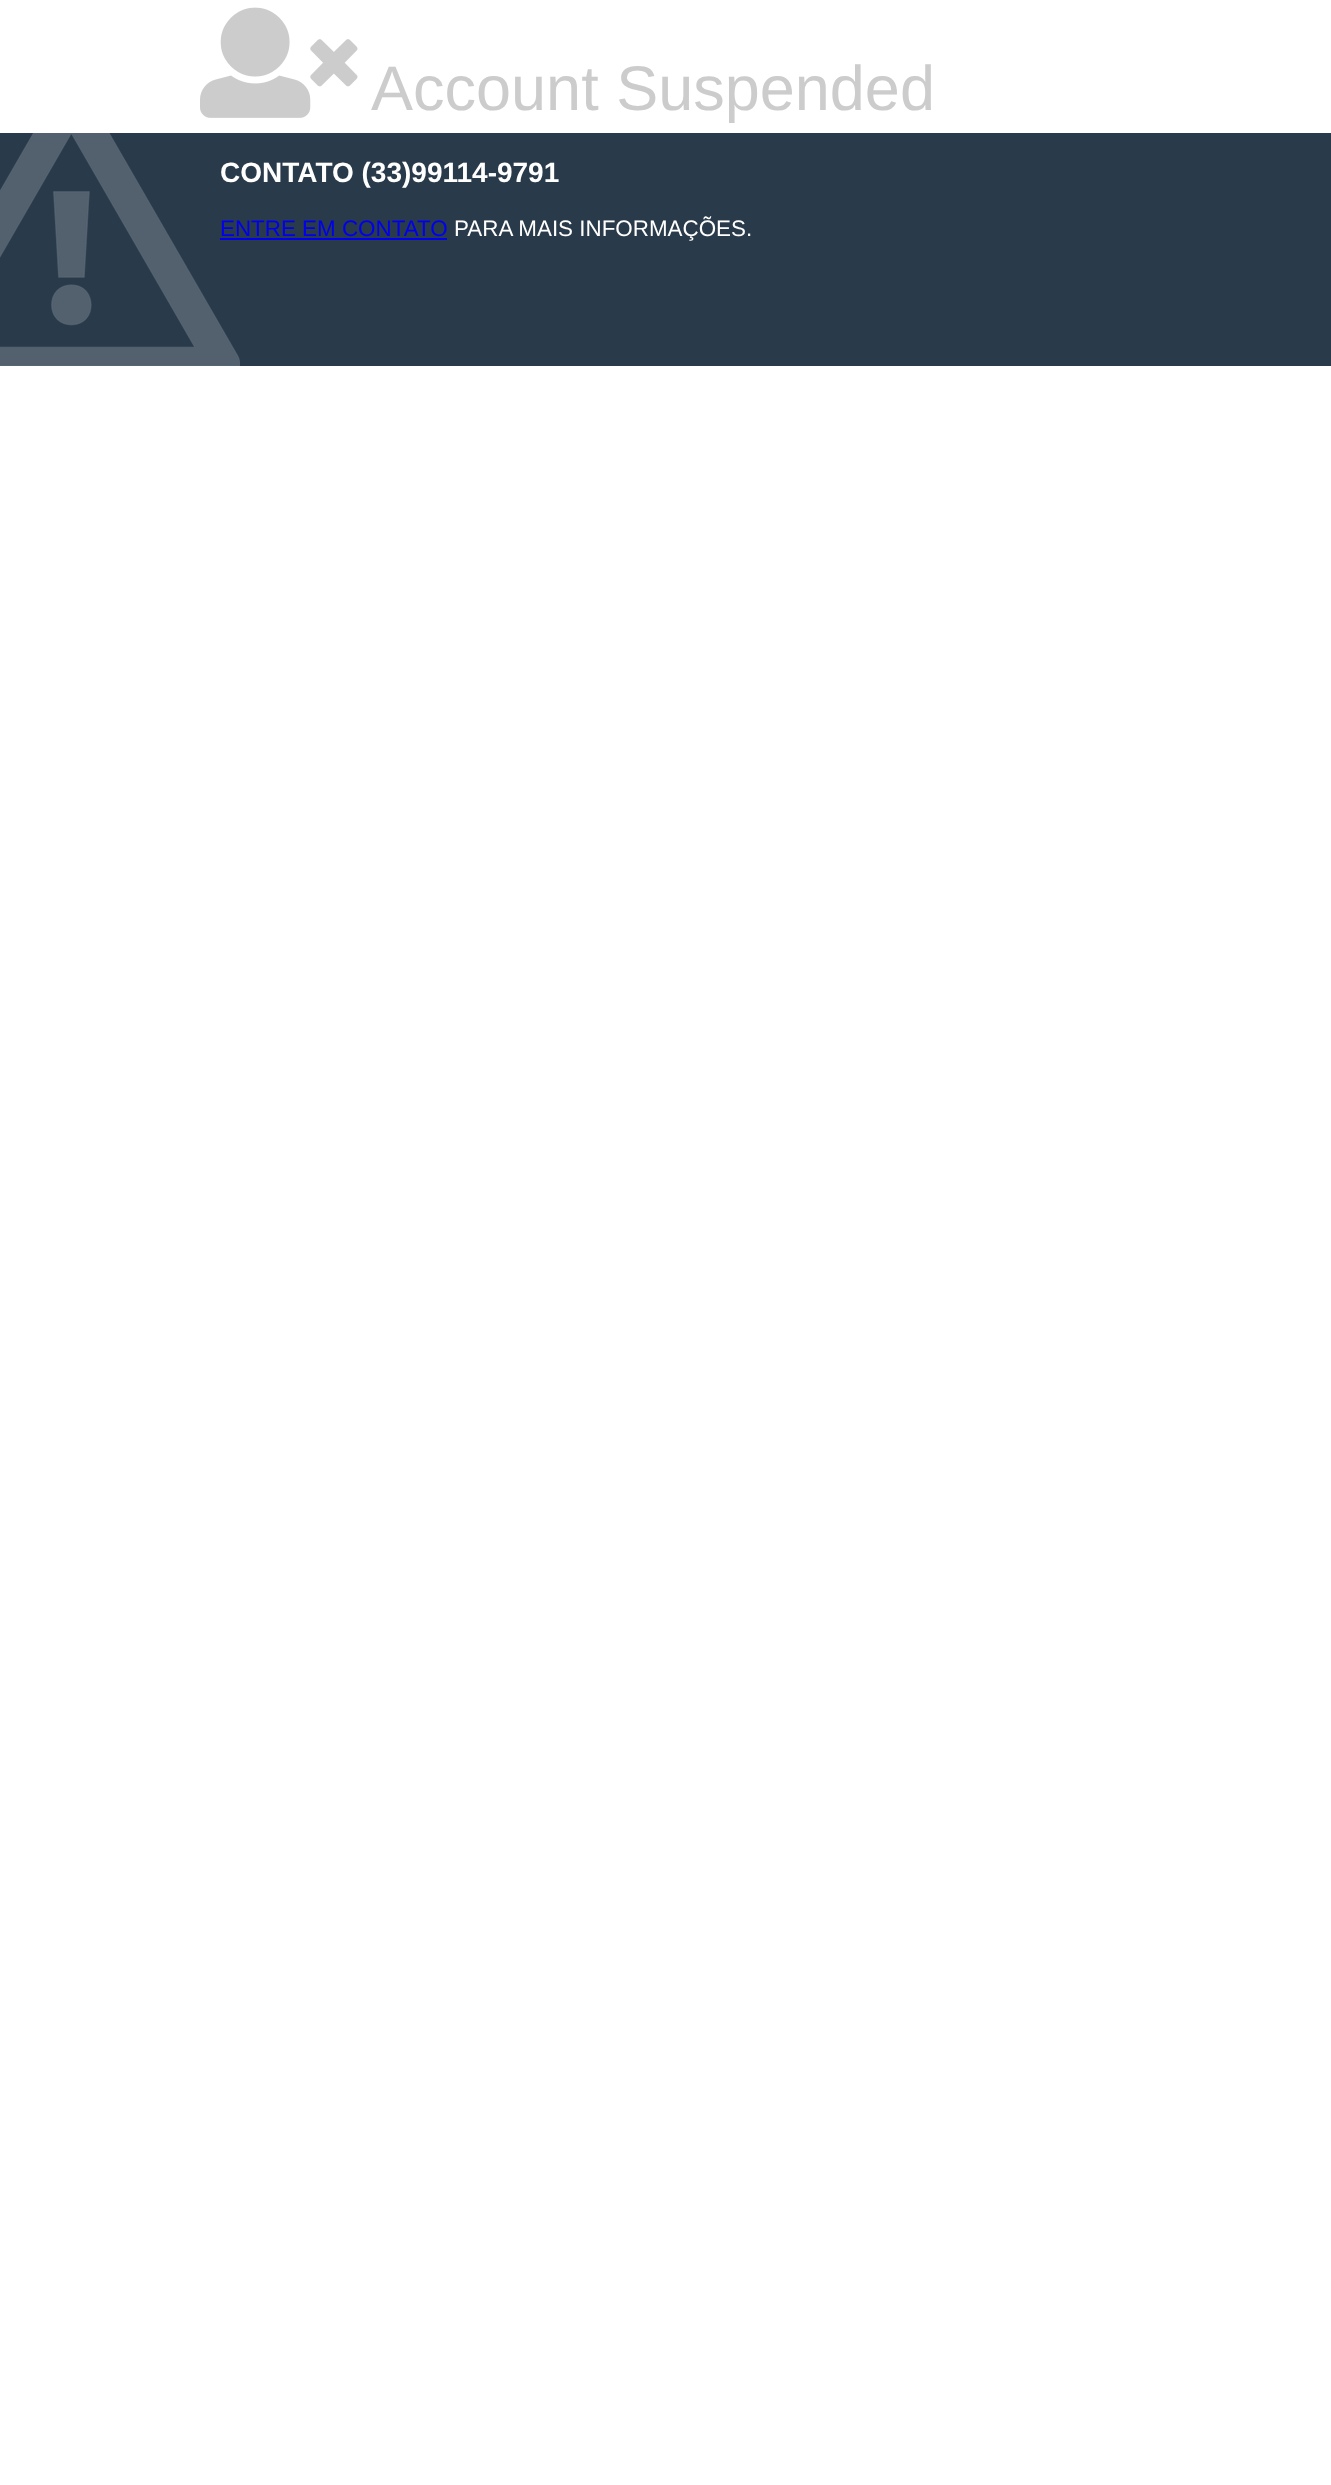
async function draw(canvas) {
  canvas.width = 1331;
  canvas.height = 2485;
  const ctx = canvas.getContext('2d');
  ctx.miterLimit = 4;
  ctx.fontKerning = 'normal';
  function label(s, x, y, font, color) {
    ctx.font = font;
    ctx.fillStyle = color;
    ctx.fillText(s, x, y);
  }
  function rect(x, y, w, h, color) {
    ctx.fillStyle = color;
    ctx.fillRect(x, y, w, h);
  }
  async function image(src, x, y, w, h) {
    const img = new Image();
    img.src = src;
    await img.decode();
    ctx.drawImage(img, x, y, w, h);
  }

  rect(0, 0, 1331, 2485, '#fff');
  await image('assets/img1.png', 200, 7, 158, 111);
  label('Account Suspended', 371, 110, '63px Liberation Sans', '#ccc');
  rect(0, 133, 1331, 233, '#293a4a');
  await image('assets/img2.png', 0, 133, 240, 233);
  label('CONTATO (33)99114-9791', 220, 182, 'bold 28px Liberation Sans', '#fff');
  label('ENTRE EM CONTATO', 220, 236, '22.4px Liberation Sans', '#00e');
  rect(220, 238, 227, 2, '#00e');
  label('PARA MAIS INFORMAÇÕES.', 454, 236, '22.4px Liberation Sans', '#fff');
}

draw(document.querySelector('canvas'));
